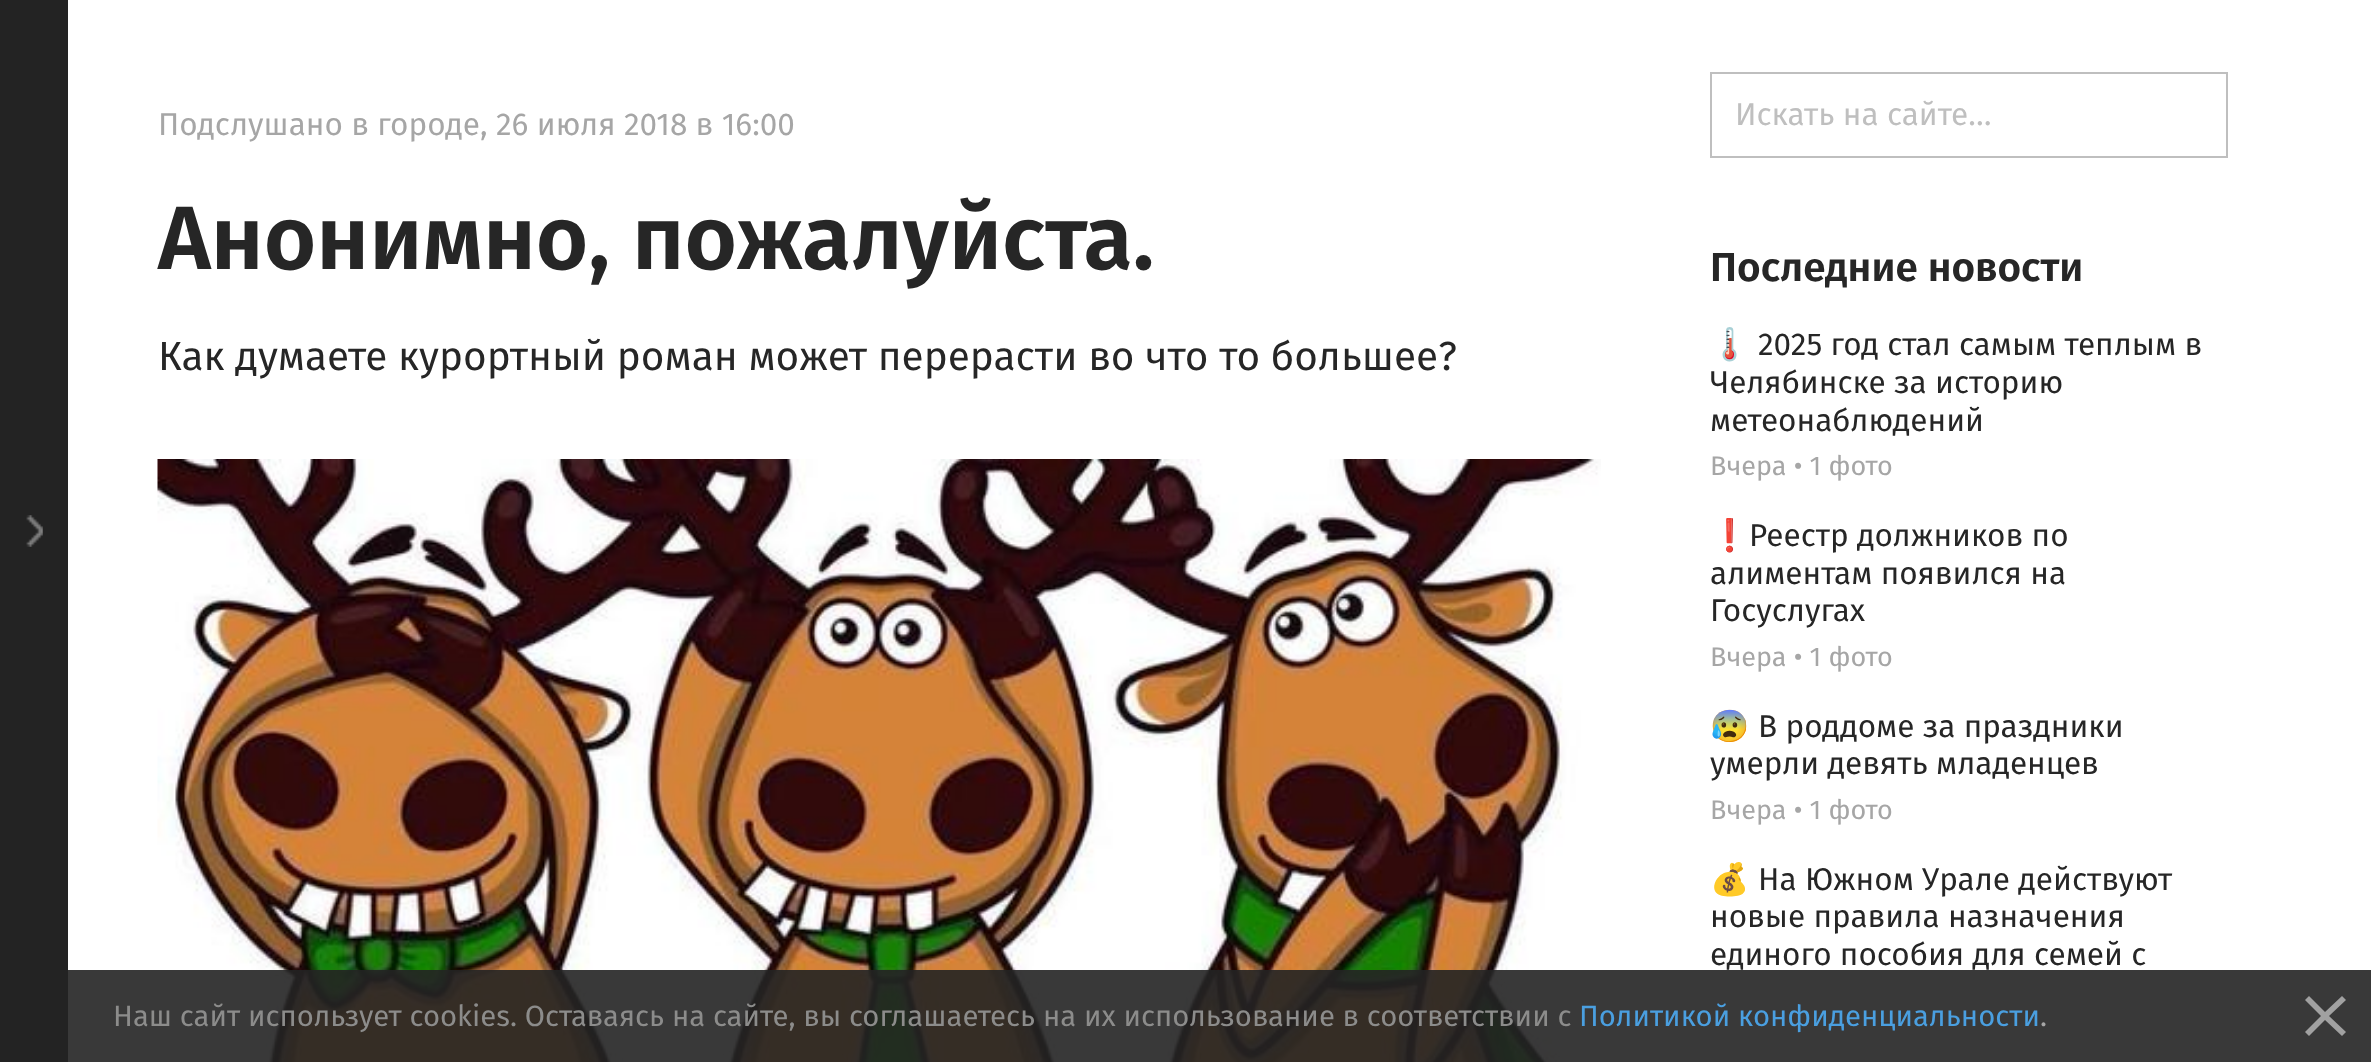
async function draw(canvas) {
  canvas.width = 2371;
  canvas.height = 1062;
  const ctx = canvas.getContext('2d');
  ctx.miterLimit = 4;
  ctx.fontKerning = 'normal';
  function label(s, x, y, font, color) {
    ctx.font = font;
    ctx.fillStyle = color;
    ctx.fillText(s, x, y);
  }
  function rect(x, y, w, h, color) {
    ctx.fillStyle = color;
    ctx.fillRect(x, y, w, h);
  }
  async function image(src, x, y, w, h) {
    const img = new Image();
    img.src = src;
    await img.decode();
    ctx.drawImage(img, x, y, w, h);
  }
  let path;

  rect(0, 0, 2371, 1062, '#fff');
  rect(0, 0, 68, 1062, '#232323');
  await image('assets/img1.png', 26, 515, 17, 32);
  label('Подслушано в городе,', 158, 135, '31.5px Fira Sans', '#a6a6a6');
  label('26 июля 2018 в 16:00', 496, 135, '31.5px Fira Sans', '#a6a6a6');
  label('Анонимно, пожалуйста.', 158, 269, '600 90px Fira Sans', '#262626');
  label('Как думаете курортный роман может перерасти во что то большее?', 158, 370, '40.5px Fira Sans', '#262626');
  await image('assets/img2.png', 157, 459, 1444, 603);
  ctx.strokeStyle = '#bfbfbf';
  ctx.lineWidth = 2;
  ctx.strokeRect(1711, 73, 516, 84);
  label('Искать на сайте…', 1735, 125, '31.5px Fira Sans', '#bfbfbf');
  label('Последние новости', 1710, 281, '600 40.5px Fira Sans', '#262626');
  label('🌡️', 1710, 355, '31.5px Noto Color Emoji', '#262626');
  label('2025 год стал самым теплым в', 1758, 355, '31.5px Fira Sans', '#262626');
  label('Челябинске за историю', 1710, 393, '31.5px Fira Sans', '#262626');
  label('метеонаблюдений', 1710, 431, '31.5px Fira Sans', '#262626');
  label('Вчера • 1 фото', 1710, 475, '27px Fira Sans', '#a6a6a6');
  label('❗️', 1710, 546, '31.5px Noto Color Emoji', '#262626');
  label('Реестр должников по', 1749, 546, '31.5px Fira Sans', '#262626');
  label('алиментам появился на', 1710, 584, '31.5px Fira Sans', '#262626');
  label('Госуслугах', 1710, 621, '31.5px Fira Sans', '#262626');
  label('Вчера • 1 фото', 1710, 666, '27px Fira Sans', '#a6a6a6');
  label('😰', 1710, 737, '31.5px Noto Color Emoji', '#262626');
  label('В роддоме за праздники', 1758, 737, '31.5px Fira Sans', '#262626');
  label('умерли девять младенцев', 1710, 774, '31.5px Fira Sans', '#262626');
  label('Вчера • 1 фото', 1710, 819, '27px Fira Sans', '#a6a6a6');
  label('💰', 1710, 890, '31.5px Noto Color Emoji', '#262626');
  label('На Южном Урале действуют', 1758, 890, '31.5px Fira Sans', '#262626');
  label('новые правила назначения', 1710, 927, '31.5px Fira Sans', '#262626');
  label('единого пособия для семей с', 1710, 965, '31.5px Fira Sans', '#262626');
  rect(68, 970, 2303, 92, '#232323e6');
  label('Наш сайт использует cookies. Оставаясь на сайте, вы соглашаетесь на их использование в соответствии с', 113, 1026, '29.25px Fira Sans', '#8c8c8b');
  label('Политикой конфиденциальности', 1579, 1026, '29.25px Fira Sans', '#4a9fe0');
  label('.', 2040, 1026, '29.25px Fira Sans', '#a6a6a6');
  ctx.fillStyle = '#a1a1a1';
  path = new Path2D('M2346 1000L2342 996L2325 1012L2309 996L2305 1000L2321 1016L2305 1032L2309 1036L2325 1020L2342 1036L2346 1032L2329 1016Z');
  ctx.fill(path);
}

draw(document.querySelector('canvas'));
